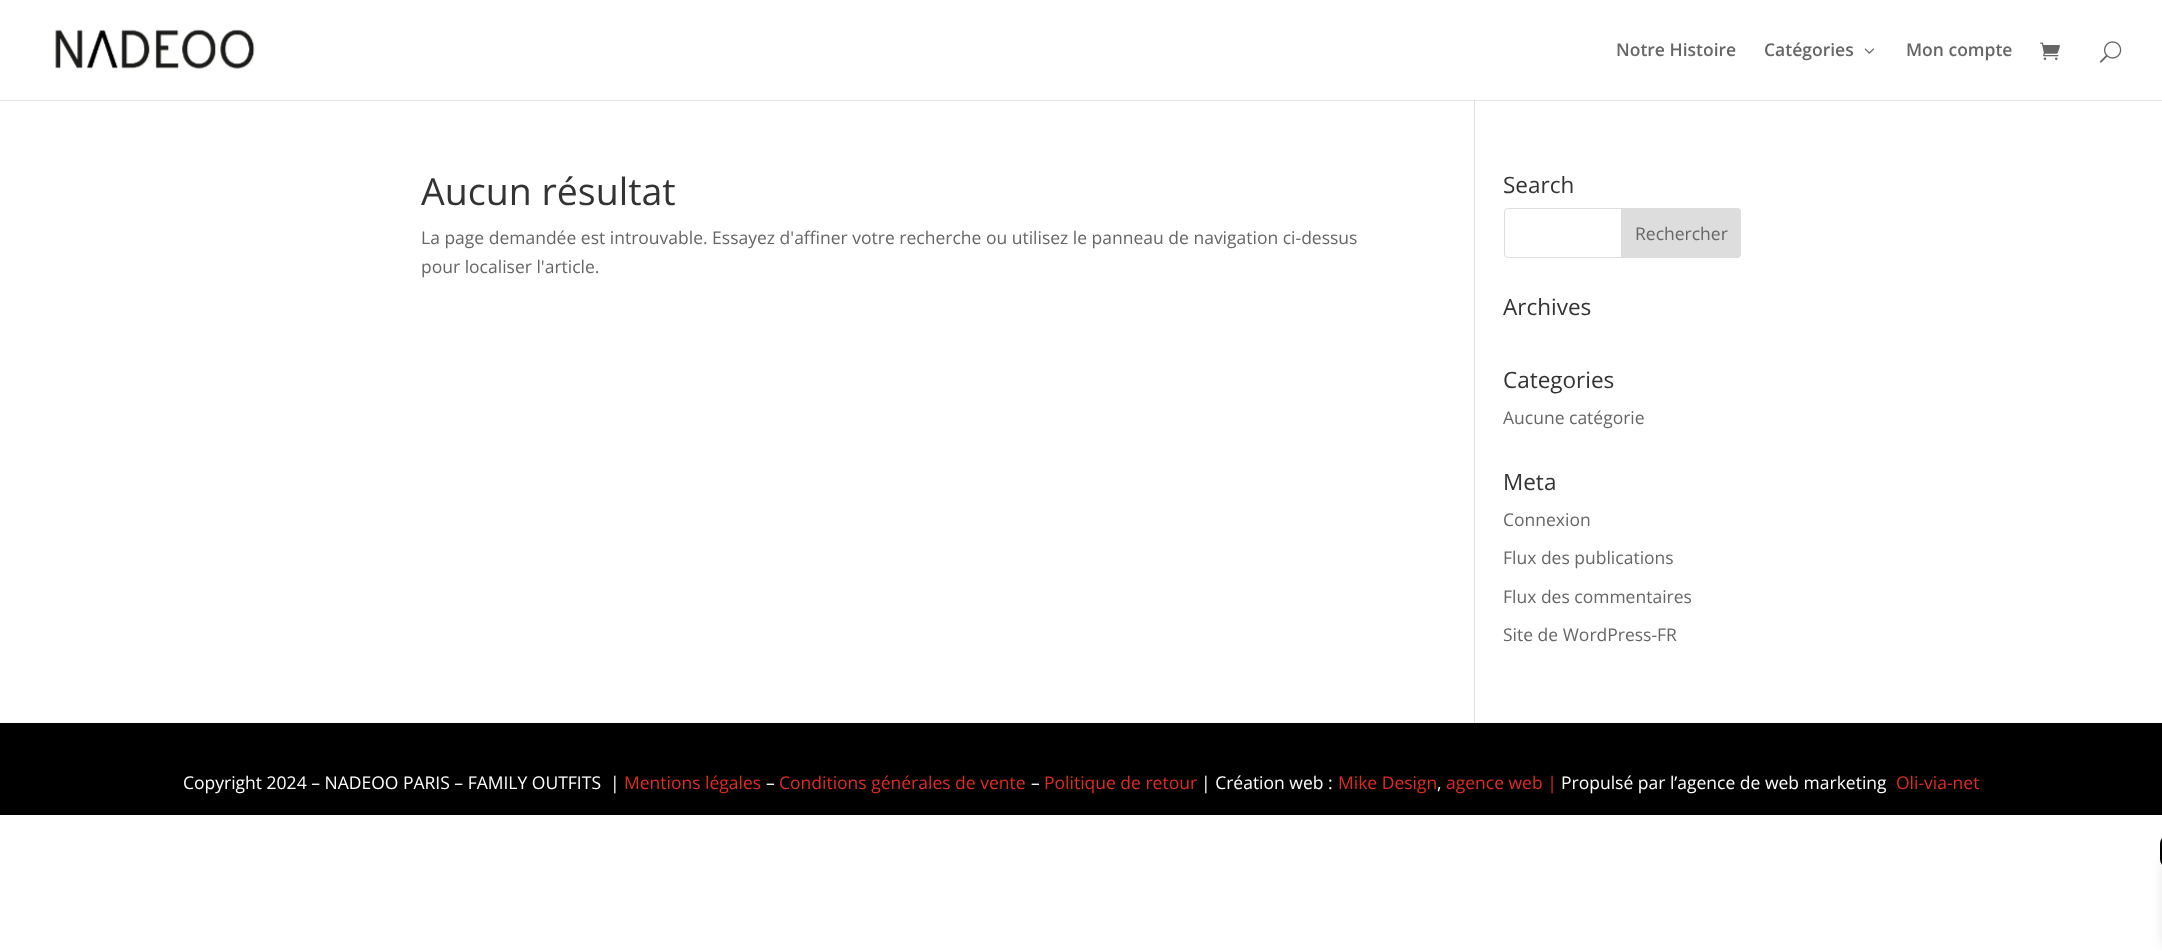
async function draw(canvas) {
  canvas.width = 2162;
  canvas.height = 951;
  const ctx = canvas.getContext('2d');
  ctx.miterLimit = 4;
  ctx.fontKerning = 'normal';
  function label(s, x, y, font, color) {
    ctx.font = font;
    ctx.fillStyle = color;
    ctx.fillText(s, x, y);
  }
  function rect(x, y, w, h, color) {
    ctx.fillStyle = color;
    ctx.fillRect(x, y, w, h);
  }
  function roundedRect(x, y, w, h, r, color) {
    ctx.fillStyle = color;
    ctx.beginPath();
    ctx.roundRect(x, y, w, h, r);
    ctx.fill();
  }
  async function image(src, x, y, w, h) {
    const img = new Image();
    img.src = src;
    await img.decode();
    ctx.drawImage(img, x, y, w, h);
  }
  let path;

  rect(0, 0, 2162, 951, '#fff');
  rect(1474, 100, 1, 623, '#e2e2e2');
  ctx.fillStyle = '#0000001a';
  path = new Path2D('M0 100V101H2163V1H2162V100Z');
  ctx.fill(path);
  await image('assets/img1.png', 55, 29, 200, 40);
  label('Notre Histoire', 1616, 56, '600 17.5px Open Sans', '#666');
  label('Catégories', 1764, 56, '600 17.5px Open Sans', '#666');
  await image('assets/img2.png', 1864, 48, 10, 6);
  label('Mon compte', 1906, 56, '600 17.5px Open Sans', '#666');
  await image('assets/img3.png', 2040, 42, 20, 18);
  await image('assets/img4.png', 2100, 41, 22, 22);
  label('Aucun résultat', 421, 205, '37.5px Open Sans', '#333');
  label('La page demandée est introuvable. Essayez d\'affiner votre recherche ou utilisez le panneau de navigation ci-dessus', 421, 244, '17.5px Open Sans', '#666');
  label('pour localiser l\'article.', 421, 273, '17.5px Open Sans', '#666');
  label('Search', 1503, 193, '22.5px Open Sans', '#333');
  ctx.beginPath();
  ctx.roundRect(1504.5, 208.5, 236, 49, 3.5);
  ctx.strokeStyle = '#ddd';
  ctx.stroke();
  ctx.fillStyle = '#ddd';
  ctx.beginPath();
  ctx.roundRect(1621.5, 208.5, 119, 49, [0, 3.5, 3.5, 0]);
  ctx.fill();
  ctx.stroke();
  label('Rechercher', 1635, 240, '17.5px Open Sans', '#666');
  label('Archives', 1503, 315, '22.5px Open Sans', '#333');
  label('Categories', 1503, 388, '22.5px Open Sans', '#333');
  label('Aucune catégorie', 1503, 424, '17.5px Open Sans', '#666');
  label('Meta', 1503, 490, '22.5px Open Sans', '#333');
  label('Connexion', 1503, 526, '17.5px Open Sans', '#666');
  label('Flux des publications', 1503, 564, '17.5px Open Sans', '#666');
  label('Flux des commentaires', 1503, 603, '17.5px Open Sans', '#666');
  label('Site de WordPress-FR', 1503, 641, '17.5px Open Sans', '#666');
  rect(0, 723, 2162, 92, '#000');
  label('Copyright 2024 – NADEOO PARIS – FAMILY OUTFITS  |', 183, 789, '17.5px Open Sans', '#fff');
  label('Mentions légales', 624, 789, '17.5px Open Sans', '#e02b20');
  label('–', 766, 789, '17.5px Open Sans', '#fff');
  label('Conditions générales de vente', 779, 789, '17.5px Open Sans', '#e02b20');
  label('–', 1031, 789, '17.5px Open Sans', '#fff');
  label('Politique de retour', 1044, 789, '17.5px Open Sans', '#e02b20');
  label('| Création web :', 1201, 789, '17.5px Open Sans', '#fff');
  label('Mike Design', 1338, 789, '17.5px Open Sans', '#e02b20');
  label('agence web |', 1446, 789, '17.5px Open Sans', '#e02b20');
  label('Propulsé par l’agence de web marketing', 1561, 789, '17.5px Open Sans', '#fff');
  label('Oli-via-net', 1896, 789, '17.5px Open Sans', '#e02b20');
  label(',', 1437, 789, '17.5px Open Sans', '#fff');
  ctx.fillStyle = '#0000001a';
  ctx.filter = 'blur(6px)';
  ctx.beginPath();
  ctx.rect(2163, 860, 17, 85);
  ctx.fill();
  ctx.filter = 'none';
  roundedRect(2160, 834, 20, 35, 17.5, '#000');
}

draw(document.querySelector('canvas'));
